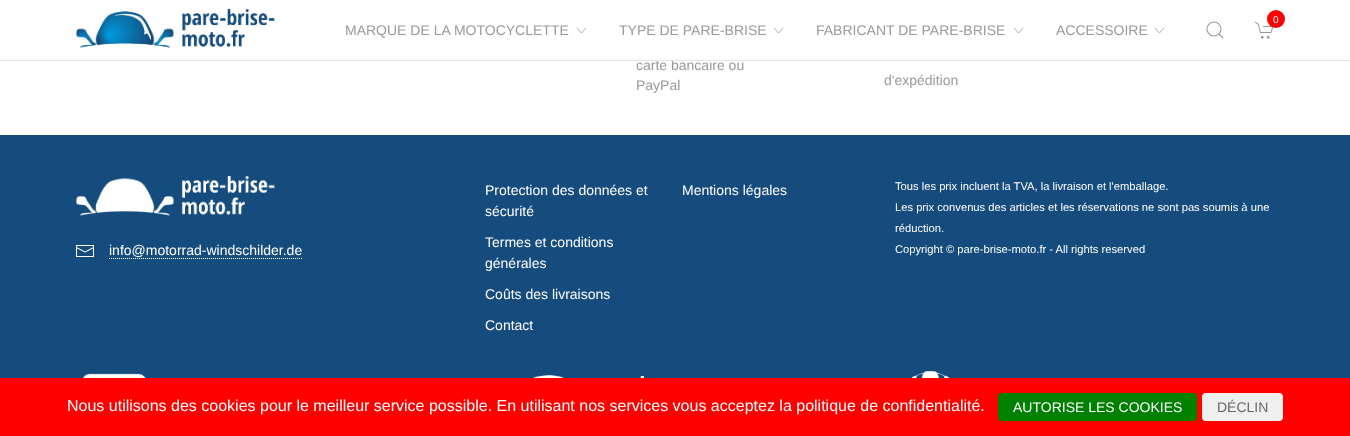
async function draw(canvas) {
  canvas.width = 1350;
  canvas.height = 436;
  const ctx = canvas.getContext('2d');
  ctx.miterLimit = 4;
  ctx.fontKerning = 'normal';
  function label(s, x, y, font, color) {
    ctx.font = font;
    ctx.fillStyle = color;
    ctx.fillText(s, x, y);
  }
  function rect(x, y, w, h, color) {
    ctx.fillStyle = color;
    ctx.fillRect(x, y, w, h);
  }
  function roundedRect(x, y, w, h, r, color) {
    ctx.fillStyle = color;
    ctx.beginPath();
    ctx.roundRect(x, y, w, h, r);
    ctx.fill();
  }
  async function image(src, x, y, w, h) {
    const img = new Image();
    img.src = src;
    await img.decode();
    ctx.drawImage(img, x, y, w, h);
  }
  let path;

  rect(0, 0, 1350, 436, '#fff');
  label('carte bancaire ou', 636, 70, '14px Liberation Sans', '#999');
  rect(672, 59, 40, 1, '#fff');
  rect(0, 60, 1350, 1, '#e5e5e5');
  await image('assets/img1.png', 1255, 21, 19, 18);
  ctx.fillStyle = '#f00';
  ctx.beginPath();
  ctx.arc(1276, 19, 9, 0, 2 * Math.PI);
  ctx.fill();
  label('0', 1273, 23, '10px Liberation Sans', '#fff');
  ctx.beginPath();
  ctx.arc(1214, 29, 7, 0, 2 * Math.PI);
  ctx.strokeStyle = '#999';
  ctx.lineWidth = 1.1;
  ctx.stroke();
  path = new Path2D('M1219 34L1223 38Z');
  ctx.stroke(path);
  await image('assets/img2.png', 75, 8, 200, 40);
  label('MARQUE DE LA MOTOCYCLETTE', 345, 35, '14px Liberation Sans', '#999');
  path = new Path2D('M586 28L581.5 33L577 28');
  ctx.lineWidth = 0.8;
  ctx.stroke(path);
  label('TYPE DE PARE-BRISE', 619, 35, '14px Liberation Sans', '#999');
  path = new Path2D('M783 28L778.5 33L774 28');
  ctx.stroke(path);
  label('FABRICANT DE PARE-BRISE', 816, 35, '14px Liberation Sans', '#999');
  path = new Path2D('M1023 28L1018.5 33L1014 28');
  ctx.stroke(path);
  label('ACCESSOIRE', 1056, 35, '14px Liberation Sans', '#999');
  path = new Path2D('M1164 28L1159.5 33L1155 28');
  ctx.stroke(path);
  label('PayPal', 636, 90, '14px Liberation Sans', '#999');
  label('d\'expédition', 884, 85, '14px Liberation Sans', '#999');
  rect(0, 135, 1350, 243, '#154c7d');
  await image('assets/img3.png', 75, 175, 200, 41);
  await image('assets/img4.png', 76, 245, 18, 12);
  label('info@motorrad-windschilder.de', 109, 255, '14px Liberation Sans', '#fff');
  path = new Path2D('M109 258.5H302');
  ctx.strokeStyle = '#fff';
  ctx.lineWidth = 1;
  ctx.setLineDash([1, 1]);
  ctx.stroke(path);
  label('Protection des données et', 485, 195, '14px Liberation Sans', '#fff');
  label('sécurité', 485, 216, '14px Liberation Sans', '#fff');
  label('Termes et conditions', 485, 247, '14px Liberation Sans', '#fff');
  label('générales', 485, 268, '14px Liberation Sans', '#fff');
  label('Coûts des livraisons', 485, 299, '14px Liberation Sans', '#fff');
  label('Contact', 485, 330, '14px Liberation Sans', '#fff');
  label('Mentions légales', 682, 195, '14px Liberation Sans', '#fff');
  label('Tous les prix incluent la TVA, la livraison et l\'emballage.', 895, 190, '11.2px Liberation Sans', '#fff');
  label('Les prix convenus des articles et les réservations ne sont pas soumis à une', 895, 211, '11.2px Liberation Sans', '#fff');
  label('réduction.', 895, 232, '11.2px Liberation Sans', '#fff');
  label('Copyright © pare-brise-moto.fr - All rights reserved', 895, 253, '11.2px Liberation Sans', '#fff');
  await image('assets/img5.png', 83, 373, 63, 5);
  await image('assets/img6.png', 533, 375, 111, 3);
  await image('assets/img7.png', 911, 371, 39, 7);
  rect(0, 378, 1350, 58, '#f00');
  label('Nous utilisons des cookies pour le meilleur service possible. En utilisant nos services vous acceptez la politique de confidentialité.', 67, 411, '16px Liberation Sans', '#fff');
  roundedRect(998, 393, 199, 28, 4, '#008000');
  label('AUTORISE LES COOKIES', 1013, 412, '14px Liberation Sans', '#fff');
  roundedRect(1202, 393, 81, 28, 4, '#efefef');
  label('DÉCLIN', 1217, 412, '14px Liberation Sans', '#666');
}

draw(document.querySelector('canvas'));
